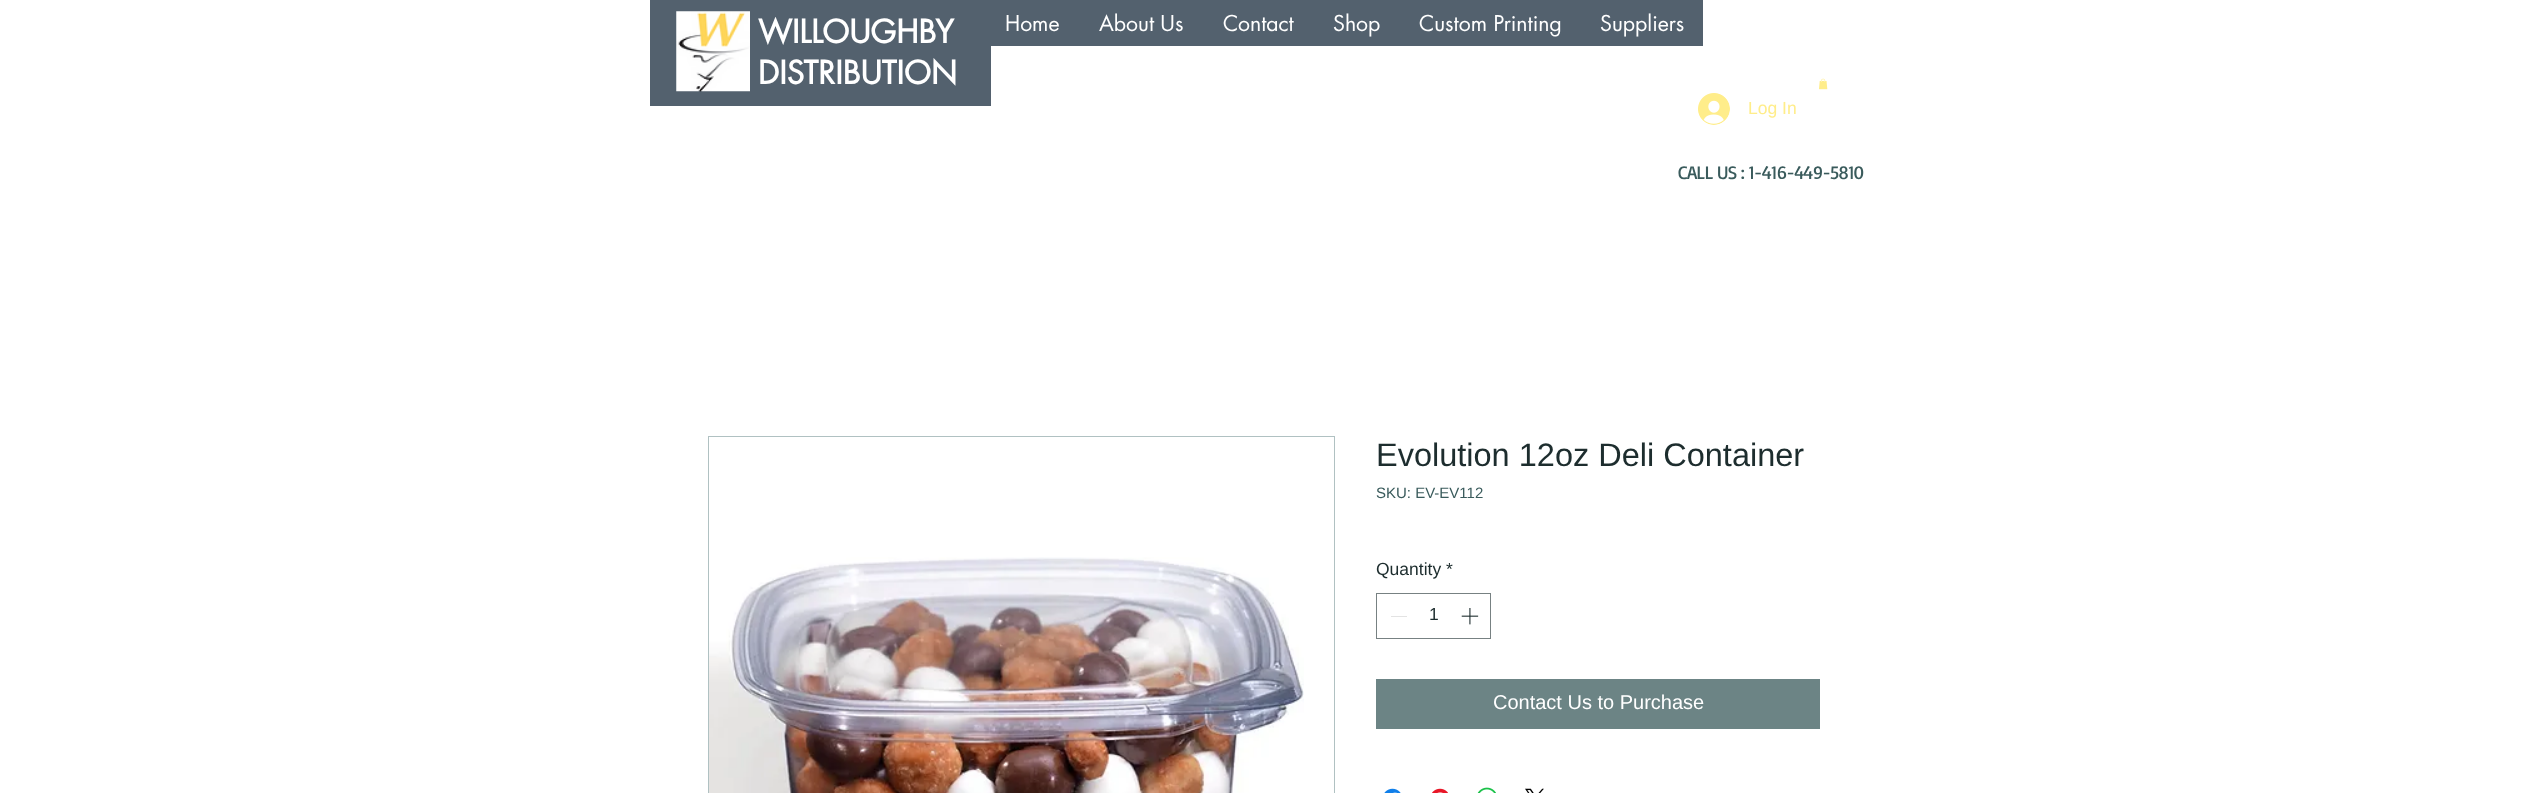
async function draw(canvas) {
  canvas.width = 2527;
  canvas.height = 793;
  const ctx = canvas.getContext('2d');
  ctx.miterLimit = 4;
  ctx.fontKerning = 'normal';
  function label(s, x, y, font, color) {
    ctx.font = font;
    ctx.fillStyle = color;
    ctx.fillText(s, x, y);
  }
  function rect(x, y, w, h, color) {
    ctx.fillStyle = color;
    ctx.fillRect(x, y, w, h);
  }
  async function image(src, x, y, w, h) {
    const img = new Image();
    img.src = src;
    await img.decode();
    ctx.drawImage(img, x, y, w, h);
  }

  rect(0, 0, 2527, 793, '#fff');
  rect(650, 0, 341, 106, '#53616e');
  await image('assets/img1.png', 676, 11, 74, 81);
  label('WILLOUGHBY', 758, 43, 'bold 31.25px futura', '#fff');
  label('DISTRIBUTION', 758, 84, 'bold 31.25px futura', '#fff');
  rect(991, 0, 712, 46, '#53616e');
  label('Home', 1005, 31, '21.25px futura', '#fff');
  label('About Us', 1099, 31, '21.25px futura', '#fff');
  label('Contact', 1223, 31, '21.25px futura', '#fff');
  label('Shop', 1333, 31, '21.25px futura', '#fff');
  label('Custom Printing', 1419, 31, '21.25px futura', '#fff');
  label('Suppliers', 1600, 31, '21.25px futura', '#fff');
  await image('assets/img2.png', 1819, 78, 9, 12);
  await image('assets/img3.png', 1698, 93, 32, 32);
  label('Log In', 1748, 114, '17.5px Liberation Sans', '#ffed8a');
  ctx.letterSpacing = '-0.9px';
  label('CALL US : 1-416-449-5810', 1678, 179, '18.75px Basic', '#3a5b5c');
  ctx.strokeStyle = '#b0c1c2';
  ctx.strokeRect(708.5, 436.5, 626, 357);
  await image('assets/img4.png', 709, 557, 595, 236);
  ctx.letterSpacing = '0px';
  label('Evolution 12oz Deli Container', 1376, 466, '32.5px Liberation Sans', '#1d2d2e');
  label('SKU: EV-EV112', 1376, 498, '15px Liberation Sans', '#3a5b5c');
  label('Quantity *', 1376, 575, '17.5px Liberation Sans', '#1d2d2e');
  ctx.strokeStyle = '#778182';
  ctx.strokeRect(1376.5, 593.5, 114, 45);
  rect(1391, 616, 16, 1, '#e3e3e3');
  label('1', 1429, 620, '17.5px Liberation Sans', '#1d2d2e');
  await image('assets/img5.png', 1461, 608, 18, 17);
  rect(1376, 679, 444, 50, '#6c8485');
  label('Contact Us to Purchase', 1493, 709, '20px Liberation Sans', '#fff');
  await image('assets/img6.png', 1384, 788, 17, 5);
  await image('assets/img7.png', 1432, 788, 16, 5);
  await image('assets/img8.png', 1477, 787, 19, 6);
  await image('assets/img9.png', 1525, 788, 19, 5);
}

draw(document.querySelector('canvas'));
